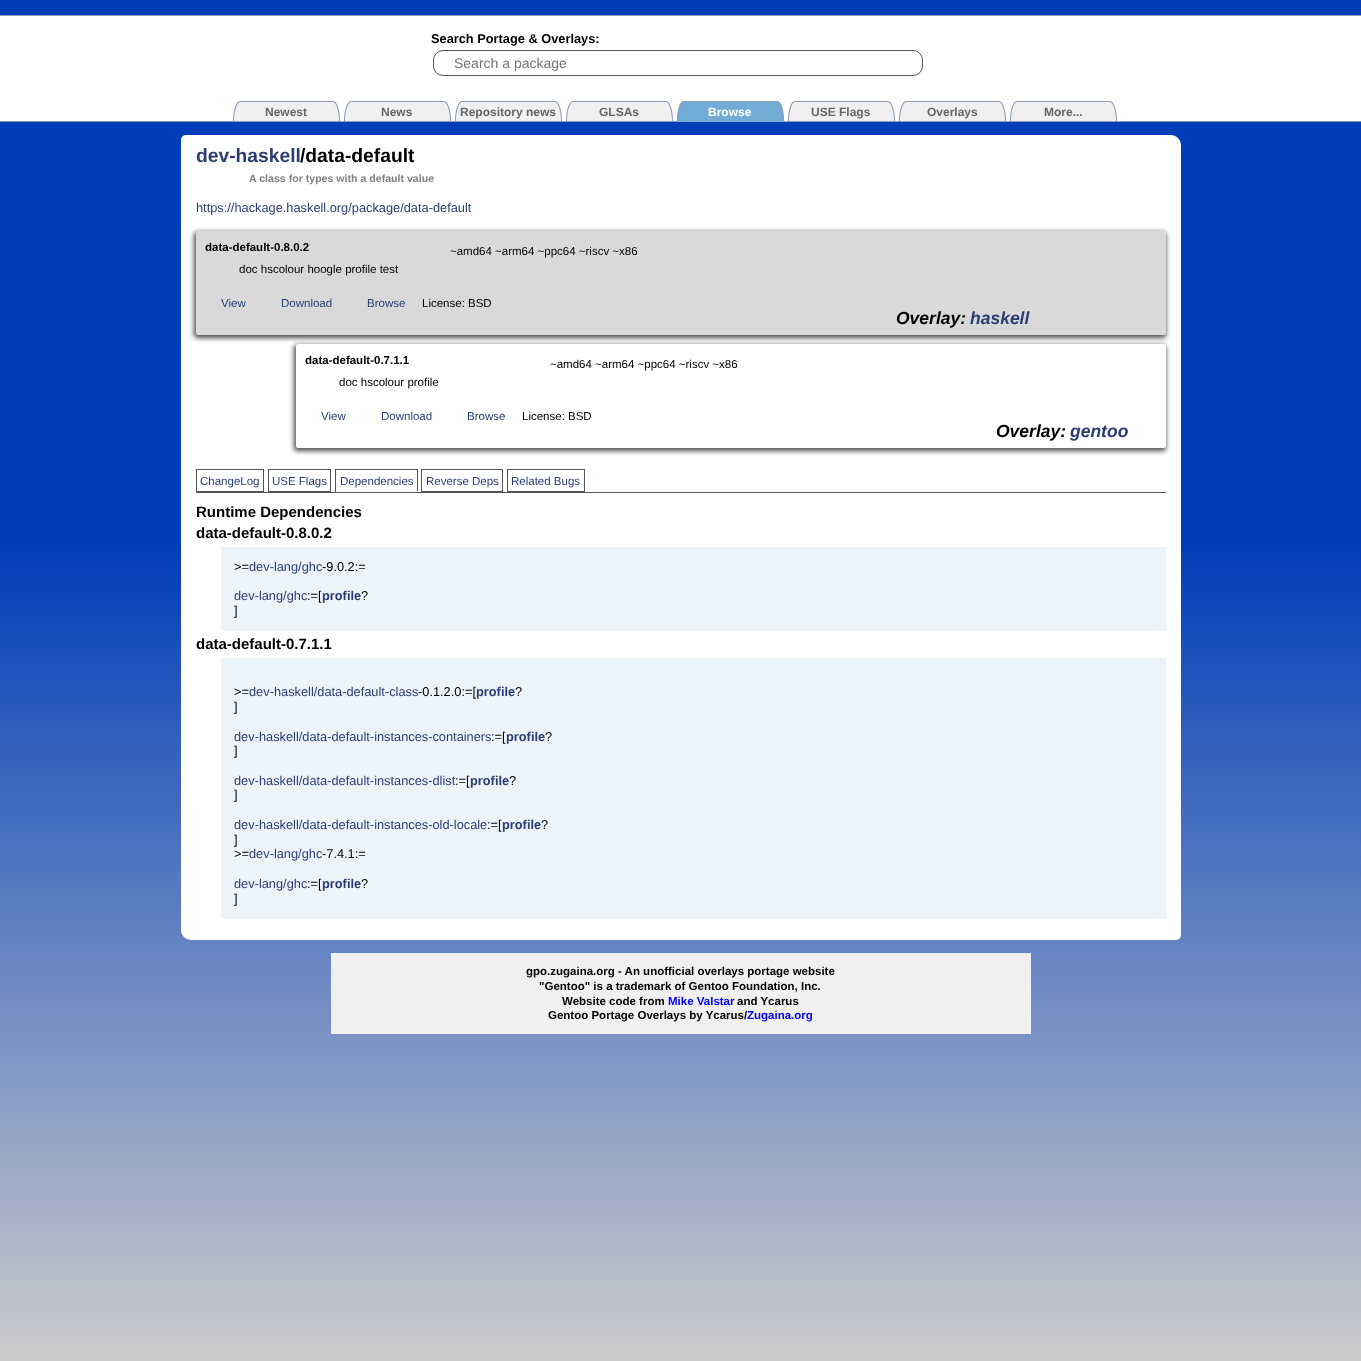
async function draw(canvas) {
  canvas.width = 1361;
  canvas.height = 1361;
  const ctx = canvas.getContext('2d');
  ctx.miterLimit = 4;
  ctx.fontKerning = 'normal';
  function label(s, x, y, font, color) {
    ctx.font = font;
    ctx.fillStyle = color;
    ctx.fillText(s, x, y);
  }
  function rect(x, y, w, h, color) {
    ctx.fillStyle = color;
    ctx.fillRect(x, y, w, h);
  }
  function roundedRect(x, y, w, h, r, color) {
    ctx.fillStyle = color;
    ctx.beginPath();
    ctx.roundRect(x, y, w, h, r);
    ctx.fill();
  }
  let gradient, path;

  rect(0, 0, 1361, 1361, '#fff');
  gradient = ctx.createLinearGradient(0, 0, 0, 1361);
  gradient.addColorStop(0.4, '#003db9');
  gradient.addColorStop(1, '#ccc');
  ctx.fillStyle = gradient;
  ctx.fillRect(0, 0, 1361, 1361);
  rect(0, 16, 1361, 105, '#fff');
  rect(0, 15, 1361, 1, '#8f9cb4');
  rect(0, 121, 1361, 1, '#8f9cb4');
  label('Search Portage & Overlays:', 431, 43, 'bold 12.8px Liberation Sans', '#000');
  ctx.beginPath();
  ctx.roundRect(433.5, 50.5, 489, 25, 9.5);
  ctx.strokeStyle = '#555';
  ctx.stroke();
  label('Search a package', 454, 68, '14px Liberation Sans', '#757575');
  ctx.fillStyle = '#f0f0f0';
  path = new Path2D('M240 101H333C337 101 340 110 340 121H233C233 110 236 101 240 101Z');
  ctx.fill(path);
  ctx.fillStyle = '#8f9cb4';
  path = new Path2D('M240 101H333C337 101 340 110 340 121H233C233 110 236 101 240 101ZM240 102H333C336 102 339 111 339 121H234C234 111 237 102 240 102Z');
  ctx.fill(path, 'evenodd');
  label('Newest', 265, 116, 'bold 12px Liberation Sans', '#666');
  ctx.fillStyle = '#f0f0f0';
  path = new Path2D('M351 101H444C448 101 451 110 451 121H344C344 110 347 101 351 101Z');
  ctx.fill(path);
  ctx.fillStyle = '#8f9cb4';
  path = new Path2D('M351 101H444C448 101 451 110 451 121H344C344 110 347 101 351 101ZM351 102H444C447 102 450 111 450 121H345C345 111 348 102 351 102Z');
  ctx.fill(path, 'evenodd');
  label('News', 381, 116, 'bold 12px Liberation Sans', '#666');
  ctx.fillStyle = '#f0f0f0';
  path = new Path2D('M462 101H555C559 101 562 110 562 121H455C455 110 458 101 462 101Z');
  ctx.fill(path);
  ctx.fillStyle = '#8f9cb4';
  path = new Path2D('M462 101H555C559 101 562 110 562 121H455C455 110 458 101 462 101ZM462 102H555C558 102 561 111 561 121H456C456 111 459 102 462 102Z');
  ctx.fill(path, 'evenodd');
  label('Repository news', 460, 116, 'bold 12px Liberation Sans', '#666');
  ctx.fillStyle = '#f0f0f0';
  path = new Path2D('M573 101H666C670 101 673 110 673 121H566C566 110 569 101 573 101Z');
  ctx.fill(path);
  ctx.fillStyle = '#8f9cb4';
  path = new Path2D('M573 101H666C670 101 673 110 673 121H566C566 110 569 101 573 101ZM573 102H666C669 102 672 111 672 121H567C567 111 570 102 573 102Z');
  ctx.fill(path, 'evenodd');
  label('GLSAs', 599, 116, 'bold 12px Liberation Sans', '#666');
  ctx.fillStyle = '#71acd6';
  path = new Path2D('M684 101H777C781 101 784 110 784 122H677C677 110 680 101 684 101Z');
  ctx.fill(path);
  ctx.fillStyle = '#8f9cb4';
  path = new Path2D('M684 101C683 101 681 102 680 104L681 105C682 103 683 102 684 102H777C778 102 779 103 780 105L781 104C780 102 778 101 777 101Z');
  ctx.fill(path);
  path = new Path2D('M781 104C783 108 784 114.5 784 122L783 121C783 114 781.5 108.5 780 105Z');
  ctx.fill(path);
  ctx.fillStyle = '#71acd6';
  path = new Path2D('M784 122L783 121H678L677 122ZM678 121V122ZM783 121V122Z');
  ctx.fill(path, 'evenodd');
  ctx.fillStyle = '#8f9cb4';
  path = new Path2D('M677 122L678 121C678 114 679.5 108.5 681 105L680 104C678 108 677 114.5 677 122Z');
  ctx.fill(path);
  label('Browse', 708, 116, 'bold 12px Liberation Sans', '#fff');
  ctx.fillStyle = '#f0f0f0';
  path = new Path2D('M795 101H888C892 101 895 110 895 121H788C788 110 791 101 795 101Z');
  ctx.fill(path);
  ctx.fillStyle = '#8f9cb4';
  path = new Path2D('M795 101H888C892 101 895 110 895 121H788C788 110 791 101 795 101ZM795 102H888C891 102 894 111 894 121H789C789 111 792 102 795 102Z');
  ctx.fill(path, 'evenodd');
  label('USE Flags', 811, 116, 'bold 12px Liberation Sans', '#666');
  ctx.fillStyle = '#f0f0f0';
  path = new Path2D('M906 101H999C1003 101 1006 110 1006 121H899C899 110 902 101 906 101Z');
  ctx.fill(path);
  ctx.fillStyle = '#8f9cb4';
  path = new Path2D('M906 101H999C1003 101 1006 110 1006 121H899C899 110 902 101 906 101ZM906 102H999C1002 102 1005 111 1005 121H900C900 111 903 102 906 102Z');
  ctx.fill(path, 'evenodd');
  label('Overlays', 927, 116, 'bold 12px Liberation Sans', '#666');
  ctx.fillStyle = '#f0f0f0';
  path = new Path2D('M1017 101H1110C1114 101 1117 110 1117 121H1010C1010 110 1013 101 1017 101Z');
  ctx.fill(path);
  ctx.fillStyle = '#8f9cb4';
  path = new Path2D('M1017 101H1110C1114 101 1117 110 1117 121H1010C1010 110 1013 101 1017 101ZM1017 102H1110C1113 102 1116 111 1116 121H1011C1011 111 1014 102 1017 102Z');
  ctx.fill(path, 'evenodd');
  label('More...', 1044, 116, 'bold 12px Liberation Sans', '#666');
  ctx.fillStyle = '#fff';
  ctx.beginPath();
  ctx.roundRect(181, 135, 1000, 805, [5, 10, 5, 10]);
  ctx.fill();
  label('dev-haskell', 196, 162, 'bold 19.25px Liberation Sans', '#2b3e73');
  label('/data-default', 300, 162, 'bold 19.25px Liberation Sans', '#000');
  label('A class for types with a default value', 249, 182, 'bold 10.6px Liberation Sans', '#808080');
  label('https://hackage.haskell.org/package/data-default', 196, 212, '12.8px Liberation Sans', '#2b3e73');
  ctx.fillStyle = '#000000b3';
  ctx.filter = 'blur(2.5px)';
  ctx.beginPath();
  ctx.roundRect(194, 232, 972, 106, 3);
  ctx.fill();
  ctx.filter = 'none';
  roundedRect(196, 231, 970, 104, 2, '#d9d9d9');
  label('data-default-0.8.0.2', 205, 251, 'bold 11.5px Liberation Sans', '#000');
  label('~amd64 ~arm64 ~ppc64 ~riscv ~x86', 450, 255, '11.5px Liberation Sans', '#000');
  label('doc hscolour hoogle profile test', 239, 273, '11.5px Liberation Sans', '#000');
  label('View', 221, 307, '11.5px Liberation Sans', '#2b3e73');
  label('Download', 281, 307, '11.5px Liberation Sans', '#2b3e73');
  label('Browse', 367, 307, '11.5px Liberation Sans', '#2b3e73');
  label('License: BSD', 422, 307, '11.5px Liberation Sans', '#000');
  label('Overlay:', 896, 324, 'italic bold 17.5px Liberation Sans', '#000');
  label('haskell', 970, 324, 'italic bold 17.5px Liberation Sans', '#2b3e73');
  ctx.fillStyle = '#000000b3';
  ctx.filter = 'blur(2.5px)';
  ctx.beginPath();
  ctx.roundRect(294, 345, 872, 106, 3);
  ctx.fill();
  ctx.filter = 'none';
  roundedRect(296, 344, 870, 104, 2, '#fff');
  label('data-default-0.7.1.1', 305, 364, 'bold 11.5px Liberation Sans', '#000');
  label('~amd64 ~arm64 ~ppc64 ~riscv ~x86', 550, 368, '11.5px Liberation Sans', '#000');
  label('doc hscolour profile', 339, 386, '11.5px Liberation Sans', '#000');
  label('View', 321, 420, '11.5px Liberation Sans', '#2b3e73');
  label('Download', 381, 420, '11.5px Liberation Sans', '#2b3e73');
  label('Browse', 467, 420, '11.5px Liberation Sans', '#2b3e73');
  label('License: BSD', 522, 420, '11.5px Liberation Sans', '#000');
  label('Overlay:', 996, 437, 'italic bold 17.5px Liberation Sans', '#000');
  label('gentoo', 1070, 437, 'italic bold 17.5px Liberation Sans', '#2b3e73');
  rect(196, 492, 970, 1, '#555');
  ctx.strokeRect(196.5, 469.5, 67, 22);
  label('ChangeLog', 200, 485, '11.5px Liberation Sans', '#2b3e73');
  ctx.strokeRect(268.5, 469.5, 62, 22);
  label('USE Flags', 272, 485, '11.5px Liberation Sans', '#2b3e73');
  label('Dependencies', 340, 485, '11.5px Liberation Sans', '#2b3e73');
  rect(335, 469, 83, 1, '#555');
  rect(417, 469, 1, 23, '#555');
  rect(417, 491, 1, 1, '#fff');
  rect(335, 469, 1, 23, '#555');
  ctx.strokeRect(421.5, 469.5, 81, 22);
  label('Reverse Deps', 426, 485, '11.5px Liberation Sans', '#2b3e73');
  ctx.strokeRect(507.5, 469.5, 77, 22);
  label('Related Bugs', 511, 485, '11.5px Liberation Sans', '#2b3e73');
  label('Runtime Dependencies', 196, 517, 'bold 15px Liberation Sans', '#000');
  label('data-default-0.8.0.2', 196, 538, 'bold 15px Liberation Sans', '#000');
  rect(221, 547, 945, 84, '#ecf3f9');
  label('>=', 234, 571, '12.8px Liberation Sans', '#000');
  label('dev-lang/ghc', 249, 571, '12.8px Liberation Sans', '#2b3e73');
  label('-9.0.2:=', 322, 571, '12.8px Liberation Sans', '#000');
  label('dev-lang/ghc', 234, 600, '12.8px Liberation Sans', '#2b3e73');
  label(':=[', 307, 600, '12.8px Liberation Sans', '#000');
  label('profile', 322, 600, 'bold 12.8px Liberation Sans', '#2b3e73');
  label('?', 361, 600, '12.8px Liberation Sans', '#000');
  label(']', 234, 615, '12.8px Liberation Sans', '#000');
  label('data-default-0.7.1.1', 196, 649, 'bold 15px Liberation Sans', '#000');
  rect(221, 658, 945, 261, '#ecf3f9');
  label('>=', 234, 696, '12.8px Liberation Sans', '#000');
  label('dev-haskell/data-default-class', 249, 696, '12.8px Liberation Sans', '#2b3e73');
  label('-0.1.2.0:=[', 418, 696, '12.8px Liberation Sans', '#000');
  label('profile', 476, 696, 'bold 12.8px Liberation Sans', '#2b3e73');
  label('?', 515, 696, '12.8px Liberation Sans', '#000');
  label(']', 234, 711, '12.8px Liberation Sans', '#000');
  label('dev-haskell/data-default-instances-containers', 234, 741, '12.8px Liberation Sans', '#2b3e73');
  label(':=[', 491, 741, '12.8px Liberation Sans', '#000');
  label('profile', 506, 741, 'bold 12.8px Liberation Sans', '#2b3e73');
  label('?', 545, 741, '12.8px Liberation Sans', '#000');
  label(']', 234, 755, '12.8px Liberation Sans', '#000');
  label('dev-haskell/data-default-instances-dlist', 234, 785, '12.8px Liberation Sans', '#2b3e73');
  label(':=[', 455, 785, '12.8px Liberation Sans', '#000');
  label('profile', 470, 785, 'bold 12.8px Liberation Sans', '#2b3e73');
  label('?', 509, 785, '12.8px Liberation Sans', '#000');
  label(']', 234, 799, '12.8px Liberation Sans', '#000');
  label('dev-haskell/data-default-instances-old-locale', 234, 829, '12.8px Liberation Sans', '#2b3e73');
  label(':=[', 487, 829, '12.8px Liberation Sans', '#000');
  label('profile', 502, 829, 'bold 12.8px Liberation Sans', '#2b3e73');
  label('?', 541, 829, '12.8px Liberation Sans', '#000');
  label(']', 234, 844, '12.8px Liberation Sans', '#000');
  label('>=', 234, 858, '12.8px Liberation Sans', '#000');
  label('dev-lang/ghc', 249, 858, '12.8px Liberation Sans', '#2b3e73');
  label('-7.4.1:=', 322, 858, '12.8px Liberation Sans', '#000');
  label('dev-lang/ghc', 234, 888, '12.8px Liberation Sans', '#2b3e73');
  label(':=[', 307, 888, '12.8px Liberation Sans', '#000');
  label('profile', 322, 888, 'bold 12.8px Liberation Sans', '#2b3e73');
  label('?', 361, 888, '12.8px Liberation Sans', '#000');
  label(']', 234, 903, '12.8px Liberation Sans', '#000');
  rect(331, 953, 700, 81, '#f0f0f0');
  label('gpo.zugaina.org - An unofficial overlays portage website', 526, 975, 'bold 11.5px Liberation Sans', '#000');
  label('"Gentoo" is a trademark of Gentoo Foundation, Inc.', 539, 990, 'bold 11.5px Liberation Sans', '#000');
  label('Website code from', 562, 1005, 'bold 11.5px Liberation Sans', '#000');
  label('Mike Valstar', 668, 1005, 'bold 11.5px Liberation Sans', '#00f');
  label('and Ycarus', 737, 1005, 'bold 11.5px Liberation Sans', '#000');
  label('Gentoo Portage Overlays by Ycarus/', 548, 1019, 'bold 11.5px Liberation Sans', '#000');
  label('Zugaina.org', 747, 1019, 'bold 11.5px Liberation Sans', '#00f');
}

draw(document.querySelector('canvas'));
